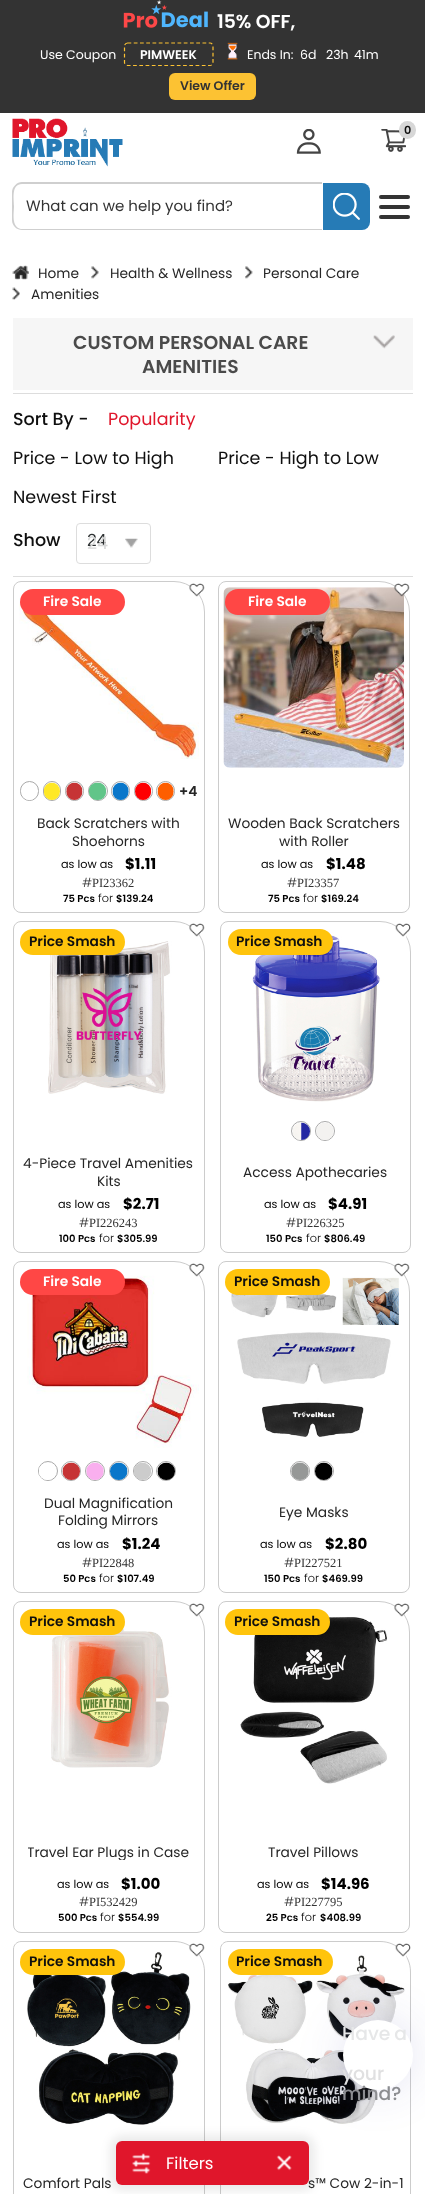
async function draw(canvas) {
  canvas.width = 425;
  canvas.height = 2194;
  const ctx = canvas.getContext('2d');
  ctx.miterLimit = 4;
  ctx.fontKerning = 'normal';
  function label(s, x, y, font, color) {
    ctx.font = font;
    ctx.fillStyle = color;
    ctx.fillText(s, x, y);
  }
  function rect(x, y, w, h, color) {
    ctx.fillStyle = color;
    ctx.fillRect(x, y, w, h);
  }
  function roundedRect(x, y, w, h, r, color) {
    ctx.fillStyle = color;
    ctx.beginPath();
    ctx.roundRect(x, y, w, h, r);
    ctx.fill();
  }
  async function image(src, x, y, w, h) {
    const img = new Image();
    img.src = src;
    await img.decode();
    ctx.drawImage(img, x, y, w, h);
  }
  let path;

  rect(0, 0, 425, 2194, '#fff');
  rect(0, 0, 425, 113, '#333');
  await image('assets/img1.png', 123, 0, 85, 28);
  label('15% OFF,', 217, 28, '600 18.75px Poppins', '#fff');
  label('Use Coupon', 40, 59, '12.5px Poppins', '#fff');
  path = new Path2D('M127.5 43H210C211.5 43 213 44.5 213 46V62.5C213 64 211.5 65.5 210 65.5H127.5C126 65.5 124.5 64 124.5 62.5V46C124.5 44.5 126 43 127.5 43Z');
  ctx.strokeStyle = '#fcc233';
  ctx.lineWidth = 1.2;
  ctx.setLineDash([3.75, 2.5]);
  ctx.stroke(path);
  label('PIMWEEK', 140, 59, '600 12.5px Poppins', '#fff');
  await image('assets/img2.png', 227, 42, 11, 18);
  label('Ends In:', 247, 59, '12.5px Poppins', '#fff');
  label('6d', 300, 59, '12.5px Poppins', '#fff');
  label('23h', 326, 59, '12.5px Poppins', '#fff');
  label('41m', 354, 59, '12.5px Poppins', '#fff');
  roundedRect(169, 73, 87, 27, 6, '#fcc233');
  label('View Offer', 180, 90, '600 12.5px Poppins', '#333');
  await image('assets/img3.png', 12, 118, 111, 49);
  await image('assets/img4.png', 296, 129, 25, 25);
  await image('assets/img5.png', 381, 129, 25, 23);
  roundedRect(399, 121, 17, 18, 8.5, '#d7d7d7');
  label('0', 404, 134, '600 11.25px Poppins', '#0f0f0f');
  ctx.fillStyle = '#cfcfcf';
  path = new Path2D('M22 182H322V230H22C17 230 12 226 12 220V192C12 187 17 182 22 182ZM22 184H322V229H21C11 227 14 213 14 206C14 199 11 184 22 184Z');
  ctx.fill(path, 'evenodd');
  label('What can we help you find?', 26, 211, '15px Poppins', '#333');
  ctx.fillStyle = '#267bb6';
  ctx.beginPath();
  ctx.roundRect(323, 183, 47, 47, [0, 8, 8, 0]);
  ctx.fill();
  await image('assets/img6.png', 333, 193, 27, 27);
  roundedRect(379, 195, 31, 4, 2, '#333');
  roundedRect(379, 205, 31, 4, 2, '#333');
  roundedRect(379, 215, 31, 4, 2, '#333');
  await image('assets/img7.png', 12, 265, 17, 15);
  label('Home', 38, 278, '13.75px Poppins', '#262626');
  await image('assets/img8.png', 91, 266, 8, 13);
  label('Health & Wellness', 110, 278, '13.75px Poppins', '#262626');
  await image('assets/img9.png', 245, 266, 8, 13);
  label('Personal Care', 263, 278, '13.75px Poppins', '#262626');
  await image('assets/img10.png', 12, 287, 8, 13);
  label('Amenities', 31, 299, '13.75px Poppins', '#262626');
  rect(13, 318, 400, 72, '#f6f6f6');
  label('CUSTOM PERSONAL CARE', 73, 349, '600 18.75px Poppins', '#4a4a4a');
  await image('assets/img11.png', 373, 335, 22, 14);
  label('AMENITIES', 142, 373, '600 18.75px Poppins', '#4a4a4a');
  rect(13, 393, 400, 1, '#ddd');
  rect(13, 576, 400, 1, '#ddd');
  label('Sort By -', 13, 425, '500 17.5px Poppins', '#0f0f0f');
  label('Popularity', 108, 425, '17.5px Poppins', '#e0162b');
  label('Price - Low to High', 13, 464, '17.5px Poppins', '#0f0f0f');
  label('Price - High to Low', 218, 464, '17.5px Poppins', '#0f0f0f');
  label('Newest First', 13, 503, '17.5px Poppins', '#0f0f0f');
  label('Show', 13, 546, '500 17.5px Poppins', '#0f0f0f');
  ctx.beginPath();
  ctx.roundRect(76.5, 523.5, 74, 40, 3.5);
  ctx.strokeStyle = '#ddd';
  ctx.lineWidth = 1;
  ctx.setLineDash([]);
  ctx.stroke();
  await image('assets/img12.png', 125, 538, 13, 10);
  label('24', 87, 546, '17.5px Liberation Sans', '#2d3132');
  label('24', 87, 549, '17.5px Poppins', '#d6d7d7');
  path = new Path2D('M21 1941.5H174C191 1941.5 204.5 1955 204.5 1972V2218C204.5 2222 201 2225.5 197 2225.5H21C17 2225.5 13.5 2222 13.5 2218V1949C13.5 1945 17 1941.5 21 1941.5Z');
  ctx.strokeStyle = '#ccc';
  ctx.stroke(path);
  await image('assets/img44.png', 27, 1947, 172, 178);
  path = new Path2D('M228 1941.5H380C397 1941.5 410.5 1955 410.5 1972V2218C410.5 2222 407 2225.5 403 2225.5H228C224 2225.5 220.5 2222 220.5 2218V1949C220.5 1945 224 1941.5 228 1941.5Z');
  ctx.stroke(path);
  await image('assets/img45.png', 228, 1947, 179, 177);
  ctx.fillStyle = '#00000014';
  ctx.filter = 'blur(5px)';
  ctx.beginPath();
  ctx.roundRect(110, 2135, 205, 56, 13);
  ctx.fill();
  ctx.filter = 'none';
  roundedRect(116, 2141, 193, 44, 6, '#e0162b');
  await image('assets/img13.png', 132, 2153, 19, 21);
  label('Filters', 166, 2169, '16.5px Poppins', '#fff');
  await image('assets/img14.png', 276, 2155, 16, 16);
  ctx.beginPath();
  ctx.roundRect(13.5, 581.5, 191, 331, [7.5, 30.5, 7.5, 7.5]);
  ctx.stroke();
  await image('assets/img16.png', 19, 587, 180, 172);
  await image('assets/img15.png', 189, 583, 16, 14);
  roundedRect(20, 589, 105, 26, 13, '#ff4745');
  label('Fire Sale', 43, 606, '600 13.75px Poppins', '#fff');
  ctx.beginPath();
  ctx.roundRect(20.5, 781.5, 18, 19, 9);
  ctx.strokeStyle = '#a9a9a9';
  ctx.stroke();
  await image('assets/img17.png', 21, 788, 15, 12);
  ctx.beginPath();
  ctx.roundRect(43.5, 781.5, 17, 19, 8.5);
  ctx.stroke();
  await image('assets/img18.png', 43, 782, 17, 18);
  ctx.beginPath();
  ctx.roundRect(65.5, 781.5, 18, 19, 9);
  ctx.stroke();
  await image('assets/img19.png', 66, 782, 17, 18);
  ctx.beginPath();
  ctx.arc(98, 791, 9.5, 0, 2 * Math.PI);
  ctx.stroke();
  await image('assets/img20.png', 88, 782, 19, 18);
  ctx.beginPath();
  ctx.roundRect(111.5, 781.5, 18, 19, 9);
  ctx.stroke();
  await image('assets/img21.png', 112, 782, 17, 18);
  ctx.beginPath();
  ctx.roundRect(134.5, 781.5, 18, 19, 9);
  ctx.stroke();
  await image('assets/img22.png', 135, 782, 17, 18);
  ctx.beginPath();
  ctx.roundRect(156.5, 781.5, 18, 19, 9);
  ctx.stroke();
  await image('assets/img23.png', 157, 782, 17, 18);
  label('+4', 179, 796, '600 13.75px Poppins', '#262626');
  label('Back Scratchers with', 37, 828, '13.75px Poppins', '#262626');
  label('Shoehorns', 72, 846, '13.75px Poppins', '#262626');
  label('as low as', 61, 868, '11.25px Poppins', '#000');
  label('$1.11', 125, 869, 'bold 15px Poppins', '#000');
  label('#', 82, 887, '300 12.5px Poppins', '#333');
  label('PI23362', 92, 887, '12.5px Liberation Serif', '#333');
  label('75 Pcs', 63, 902, '600 10px Poppins', '#000');
  label('for', 98, 902, '300 11.25px Poppins', '#000');
  label('$139.24', 116, 902, '600 10px Poppins', '#000');
  ctx.beginPath();
  ctx.roundRect(218.5, 581.5, 191, 331, [7.5, 30.5, 7.5, 7.5]);
  ctx.strokeStyle = '#ccc';
  ctx.stroke();
  await image('assets/img25.png', 223, 587, 181, 181);
  await image('assets/img24.png', 394, 583, 16, 14);
  roundedRect(225, 589, 105, 26, 13, '#ff4745');
  label('Fire Sale', 248, 606, '600 13.75px Poppins', '#fff');
  label('Wooden Back Scratchers', 228, 828, '13.75px Poppins', '#262626');
  label('with Roller', 279, 846, '13.75px Poppins', '#262626');
  label('as low as', 261, 868, '11.25px Poppins', '#000');
  label('$1.48', 326, 869, 'bold 15px Poppins', '#000');
  label('#', 287, 887, '300 12.5px Poppins', '#333');
  label('PI23357', 297, 887, '12.5px Liberation Serif', '#333');
  label('75 Pcs', 268, 902, '600 10px Poppins', '#000');
  label('for', 303, 902, '300 11.25px Poppins', '#000');
  label('$169.24', 321, 902, '600 10px Poppins', '#000');
  ctx.beginPath();
  ctx.roundRect(13.5, 921.5, 191, 331, [7.5, 30.5, 7.5, 7.5]);
  ctx.stroke();
  await image('assets/img26.png', 48, 927, 151, 167);
  await image('assets/img15.png', 189, 923, 16, 14);
  roundedRect(20, 929, 105, 26, 13, '#ffc40c');
  label('Price Smash', 29, 946, '600 13.75px Poppins', '#0f0f0f');
  label('4-Piece Travel Amenities', 23, 1168, '13.75px Poppins', '#262626');
  label('Kits', 97, 1186, '13.75px Poppins', '#262626');
  label('as low as', 58, 1208, '11.25px Poppins', '#000');
  label('$2.71', 123, 1209, 'bold 15px Poppins', '#000');
  label('#', 79, 1227, '300 12.5px Poppins', '#333');
  label('PI226243', 89, 1227, '12.5px Liberation Serif', '#333');
  label('100 Pcs', 59, 1242, '600 10px Poppins', '#000');
  label('for', 99, 1242, '300 11.25px Poppins', '#000');
  label('$305.99', 117, 1242, '600 10px Poppins', '#000');
  ctx.beginPath();
  ctx.roundRect(220.5, 921.5, 190, 331, [7.5, 30.5, 7.5, 7.5]);
  ctx.stroke();
  await image('assets/img28.png', 252, 927, 155, 175);
  await image('assets/img27.png', 395, 923, 16, 14);
  roundedRect(228, 929, 105, 26, 13, '#ffc40c');
  label('Price Smash', 236, 946, '600 13.75px Poppins', '#0f0f0f');
  ctx.beginPath();
  ctx.arc(301, 1131, 9.5, 0, 2 * Math.PI);
  ctx.strokeStyle = '#a9a9a9';
  ctx.stroke();
  await image('assets/img29.png', 293, 1122, 17, 18);
  ctx.beginPath();
  ctx.arc(325, 1131, 9.5, 0, 2 * Math.PI);
  ctx.stroke();
  await image('assets/img30.png', 316, 1123, 18, 17);
  label('Access Apothecaries', 243, 1177, '13.75px Poppins', '#262626');
  label('as low as', 264, 1208, '11.25px Poppins', '#000');
  label('$4.91', 328, 1209, 'bold 15px Poppins', '#000');
  label('#', 286, 1227, '300 12.5px Poppins', '#333');
  label('PI226325', 296, 1227, '12.5px Liberation Serif', '#333');
  label('150 Pcs', 266, 1242, '600 10px Poppins', '#000');
  label('for', 306, 1242, '300 11.25px Poppins', '#000');
  label('$806.49', 324, 1242, '600 10px Poppins', '#000');
  ctx.beginPath();
  ctx.roundRect(13.5, 1261.5, 191, 331, [7.5, 30.5, 7.5, 7.5]);
  ctx.strokeStyle = '#ccc';
  ctx.stroke();
  await image('assets/img31.png', 27, 1267, 172, 181);
  await image('assets/img15.png', 189, 1263, 16, 14);
  roundedRect(20, 1269, 105, 26, 13, '#ff4745');
  label('Fire Sale', 43, 1286, '600 13.75px Poppins', '#fff');
  ctx.beginPath();
  ctx.arc(48, 1471, 9.5, 0, 2 * Math.PI);
  ctx.strokeStyle = '#a9a9a9';
  ctx.stroke();
  await image('assets/img32.png', 38, 1463, 16, 17);
  ctx.beginPath();
  ctx.arc(71, 1471, 9.5, 0, 2 * Math.PI);
  ctx.stroke();
  await image('assets/img33.png', 62, 1462, 18, 18);
  ctx.beginPath();
  ctx.arc(95, 1471, 9.5, 0, 2 * Math.PI);
  ctx.stroke();
  await image('assets/img34.png', 86, 1462, 18, 18);
  ctx.beginPath();
  ctx.arc(119, 1471, 9.5, 0, 2 * Math.PI);
  ctx.stroke();
  await image('assets/img35.png', 110, 1462, 18, 18);
  ctx.beginPath();
  ctx.arc(143, 1471, 9.5, 0, 2 * Math.PI);
  ctx.stroke();
  await image('assets/img36.png', 134, 1462, 17, 18);
  ctx.beginPath();
  ctx.arc(166, 1471, 9.5, 0, 2 * Math.PI);
  ctx.stroke();
  await image('assets/img37.png', 157, 1462, 18, 18);
  label('Dual Magnification', 44, 1508, '13.75px Poppins', '#262626');
  label('Folding Mirrors', 58, 1525, '13.75px Poppins', '#262626');
  label('as low as', 57, 1548, '11.25px Poppins', '#000');
  label('$1.24', 122, 1549, 'bold 15px Poppins', '#000');
  label('#', 82, 1567, '300 12.5px Poppins', '#333');
  label('PI22848', 92, 1567, '12.5px Liberation Serif', '#333');
  label('50 Pcs', 63, 1582, '600 10px Poppins', '#000');
  label('for', 99, 1582, '300 11.25px Poppins', '#000');
  label('$107.49', 117, 1582, '600 10px Poppins', '#000');
  ctx.beginPath();
  ctx.roundRect(218.5, 1261.5, 191, 331, [7.5, 30.5, 7.5, 7.5]);
  ctx.strokeStyle = '#ccc';
  ctx.stroke();
  await image('assets/img39.png', 231, 1267, 173, 170);
  await image('assets/img38.png', 394, 1263, 16, 14);
  roundedRect(225, 1269, 105, 26, 13, '#ffc40c');
  label('Price Smash', 234, 1286, '600 13.75px Poppins', '#0f0f0f');
  ctx.beginPath();
  ctx.arc(300, 1471, 9.5, 0, 2 * Math.PI);
  ctx.strokeStyle = '#a9a9a9';
  ctx.stroke();
  await image('assets/img40.png', 291, 1462, 18, 18);
  ctx.beginPath();
  ctx.arc(324, 1471, 9.5, 0, 2 * Math.PI);
  ctx.stroke();
  await image('assets/img41.png', 315, 1462, 18, 18);
  label('Eye Masks', 279, 1517, '13.75px Poppins', '#262626');
  label('as low as', 260, 1548, '11.25px Poppins', '#000');
  label('$2.80', 325, 1549, 'bold 15px Poppins', '#000');
  label('#', 284, 1567, '300 12.5px Poppins', '#333');
  label('PI227521', 294, 1567, '12.5px Liberation Serif', '#333');
  label('150 Pcs', 264, 1582, '600 10px Poppins', '#000');
  label('for', 304, 1582, '300 11.25px Poppins', '#000');
  label('$469.99', 322, 1582, '600 10px Poppins', '#000');
  ctx.beginPath();
  ctx.roundRect(13.5, 1601.5, 191, 331, [7.5, 30.5, 7.5, 7.5]);
  ctx.strokeStyle = '#ccc';
  ctx.stroke();
  await image('assets/img42.png', 51, 1607, 148, 161);
  await image('assets/img15.png', 189, 1603, 16, 14);
  roundedRect(20, 1609, 105, 26, 13, '#ffc40c');
  label('Price Smash', 29, 1626, '600 13.75px Poppins', '#0f0f0f');
  ctx.save();
  ctx.beginPath();
  ctx.rect(28, 1843, 162, 17);
  ctx.clip();
  label('Travel Ear Plugs in Case', 27, 1857, '13.75px Poppins', '#262626');
  ctx.restore();
  label('as low as', 57, 1888, '11.25px Poppins', '#000');
  label('$1.00', 121, 1889, 'bold 15px Poppins', '#000');
  label('#', 79, 1906, '300 12.5px Poppins', '#333');
  label('PI532429', 89, 1906, '12.5px Liberation Serif', '#333');
  label('500 Pcs', 58, 1921, '600 10px Poppins', '#000');
  label('for', 100, 1921, '300 11.25px Poppins', '#000');
  label('$554.99', 118, 1921, '600 10px Poppins', '#000');
  ctx.beginPath();
  ctx.roundRect(218.5, 1601.5, 191, 331, [7.5, 30.5, 7.5, 7.5]);
  ctx.stroke();
  await image('assets/img43.png', 240, 1607, 164, 177);
  await image('assets/img15.png', 394, 1603, 16, 14);
  roundedRect(225, 1609, 105, 26, 13, '#ffc40c');
  label('Price Smash', 234, 1626, '600 13.75px Poppins', '#0f0f0f');
  label('Travel Pillows', 268, 1857, '13.75px Poppins', '#262626');
  label('as low as', 257, 1888, '11.25px Poppins', '#000');
  label('$14.96', 321, 1889, 'bold 15px Poppins', '#000');
  label('#', 284, 1906, '300 12.5px Poppins', '#333');
  label('PI227795', 294, 1906, '12.5px Liberation Serif', '#333');
  label('25 Pcs', 266, 1921, '600 10px Poppins', '#000');
  label('for', 301, 1921, '300 11.25px Poppins', '#000');
  label('$408.99', 320, 1921, '600 10px Poppins', '#000');
  await image('assets/img15.png', 189, 1943, 16, 14);
  roundedRect(20, 1949, 105, 26, 13, '#ffc40c');
  label('Price Smash', 29, 1966, '600 13.75px Poppins', '#0f0f0f');
  label('Comfort Pals', 23, 2188, '13.75px Poppins', '#262626');
  await image('assets/img27.png', 395, 1943, 16, 14);
  roundedRect(228, 1949, 105, 26, 13, '#ffc40c');
  label('Price Smash', 236, 1966, '600 13.75px Poppins', '#0f0f0f');
  label('s™ Cow 2-in-1', 308, 2188, '13.75px Poppins', '#262626');
  ctx.fillStyle = '#2020951a';
  ctx.filter = 'blur(22px)';
  ctx.beginPath();
  ctx.roundRect(339, 2016, 77, 78, 38.5);
  ctx.fill();
  ctx.filter = 'none';
  ctx.fillStyle = '#fff';
  ctx.beginPath();
  ctx.arc(378, 2055, 35, 0, 2 * Math.PI);
  ctx.fill();
  ctx.wordSpacing = '-1px';
  label('Have a', 342, 2040, '500 18.75px Poppins', '#e6e7e8');
  ctx.wordSpacing = '0px';
  label('your', 342, 2080, '500 18.75px Poppins', '#e0e0e1');
  label('mind?', 342, 2100, '500 18.75px Poppins', '#8c8d91');
}

draw(document.querySelector('canvas'));
